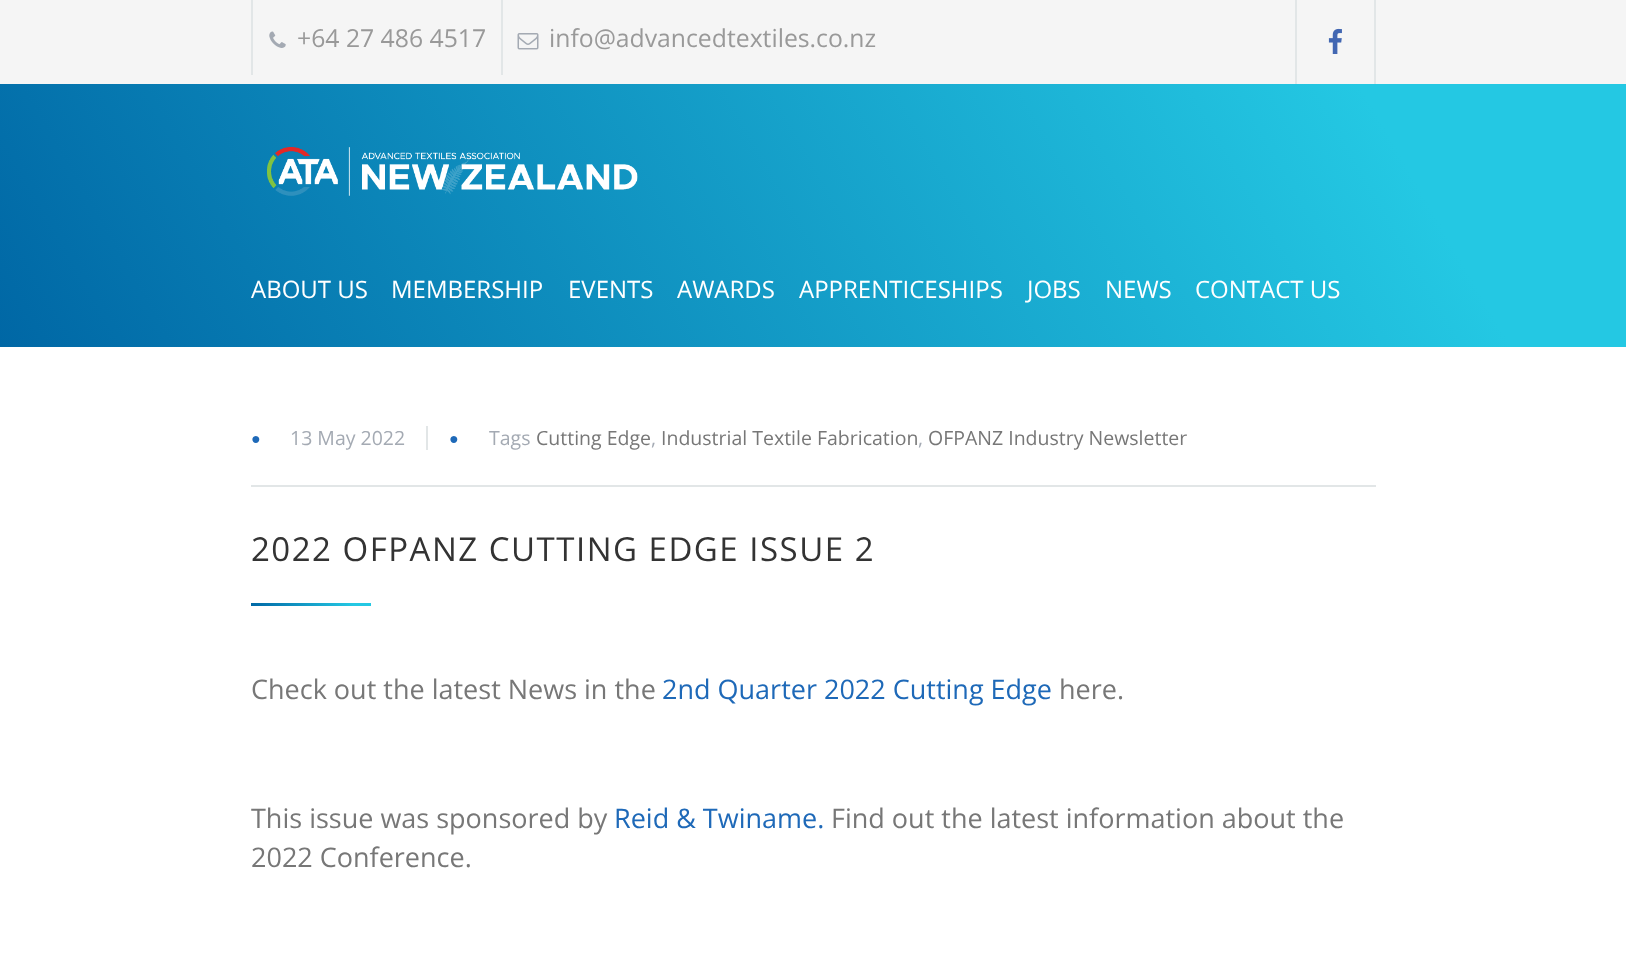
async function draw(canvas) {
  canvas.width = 1626;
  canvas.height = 969;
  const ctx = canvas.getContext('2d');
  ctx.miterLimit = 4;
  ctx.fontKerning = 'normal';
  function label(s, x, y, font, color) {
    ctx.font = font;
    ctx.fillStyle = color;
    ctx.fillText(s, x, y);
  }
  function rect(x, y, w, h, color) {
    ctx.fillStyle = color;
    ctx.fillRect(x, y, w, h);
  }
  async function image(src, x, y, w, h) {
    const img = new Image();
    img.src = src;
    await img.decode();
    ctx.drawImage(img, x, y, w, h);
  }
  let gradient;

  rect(0, 0, 1626, 969, '#fff');
  rect(0, 0, 1626, 84, '#f5f5f5');
  rect(501, 0, 2, 75, '#e2e6e7');
  rect(251, 0, 2, 75, '#e2e6e7');
  await image('assets/img1.png', 269, 31, 17, 17);
  label('+64 27 486 4517', 297, 47, '24.75px Open Sans', '#999');
  await image('assets/img2.png', 517, 33, 22, 17);
  label('info@advancedtextiles.co.nz', 549, 47, '24.75px Open Sans', '#999');
  rect(1374, 0, 2, 84, '#e2e6e7');
  rect(1295, 0, 2, 84, '#e2e6e7');
  await image('assets/img3.png', 1328, 28, 14, 26);
  gradient = ctx.createLinearGradient(1480, -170, 146, 600);
  gradient.addColorStop(0.15, '#24c8e3');
  gradient.addColorStop(1, '#0067a5');
  ctx.fillStyle = gradient;
  ctx.fillRect(0, 84, 1626, 263);
  await image('assets/img4.png', 267, 147, 371, 49);
  label('ABOUT US', 251, 298, '24px Open Sans', '#fff');
  label('MEMBERSHIP', 391, 298, '24px Open Sans', '#fff');
  label('EVENTS', 568, 298, '24px Open Sans', '#fff');
  label('AWARDS', 677, 298, '24px Open Sans', '#fff');
  label('APPRENTICESHIPS', 799, 298, '24px Open Sans', '#fff');
  label('JOBS', 1027, 298, '24px Open Sans', '#fff');
  label('NEWS', 1105, 298, '24px Open Sans', '#fff');
  label('CONTACT US', 1195, 298, '24px Open Sans', '#fff');
  rect(251, 485, 1125, 2, '#e2e6e7');
  label('●', 251, 444, '16px Liberation Serif', '#1e69b8');
  label('13 May 2022', 290, 445, '19.5px Open Sans', '#a4aab3');
  rect(426, 426, 2, 24, '#e2e6e7');
  label('●', 449, 444, '16px Liberation Serif', '#1e69b8');
  label('Tags', 489, 445, '19.5px Open Sans', '#a4aab3');
  label('Cutting Edge', 536, 445, '19.5px Open Sans', '#777');
  label('Industrial Textile Fabrication', 661, 445, '19.5px Open Sans', '#777');
  label('OFPANZ Industry Newsletter', 928, 445, '19.5px Open Sans', '#777');
  label(',', 651, 445, '19.5px Open Sans', '#a4aab3');
  label(',', 918, 445, '19.5px Open Sans', '#a4aab3');
  ctx.letterSpacing = '1.5px';
  label('2022 OFPANZ CUTTING EDGE ISSUE 2', 251, 561, '33px Open Sans', '#333');
  gradient = ctx.createLinearGradient(356, 578, 265, 631);
  gradient.addColorStop(0.15, '#24c8e3');
  gradient.addColorStop(1, '#0067a5');
  ctx.fillStyle = gradient;
  ctx.fillRect(251, 603, 120, 3);
  ctx.letterSpacing = '0px';
  label('Check out the latest News in the', 251, 699, '27px Open Sans', '#777');
  label('2nd Quarter 2022 Cutting Edge', 662, 699, '27px Open Sans', '#1e69b8');
  label('here.', 1059, 699, '27px Open Sans', '#777');
  label('This issue was sponsored by', 251, 828, '27px Open Sans', '#777');
  label('Reid & Twiname.', 614, 828, '27px Open Sans', '#1e69b8');
  label('Find out the latest information about the', 831, 828, '27px Open Sans', '#777');
  label('2022 Conference.', 251, 867, '27px Open Sans', '#777');
}

draw(document.querySelector('canvas'));
